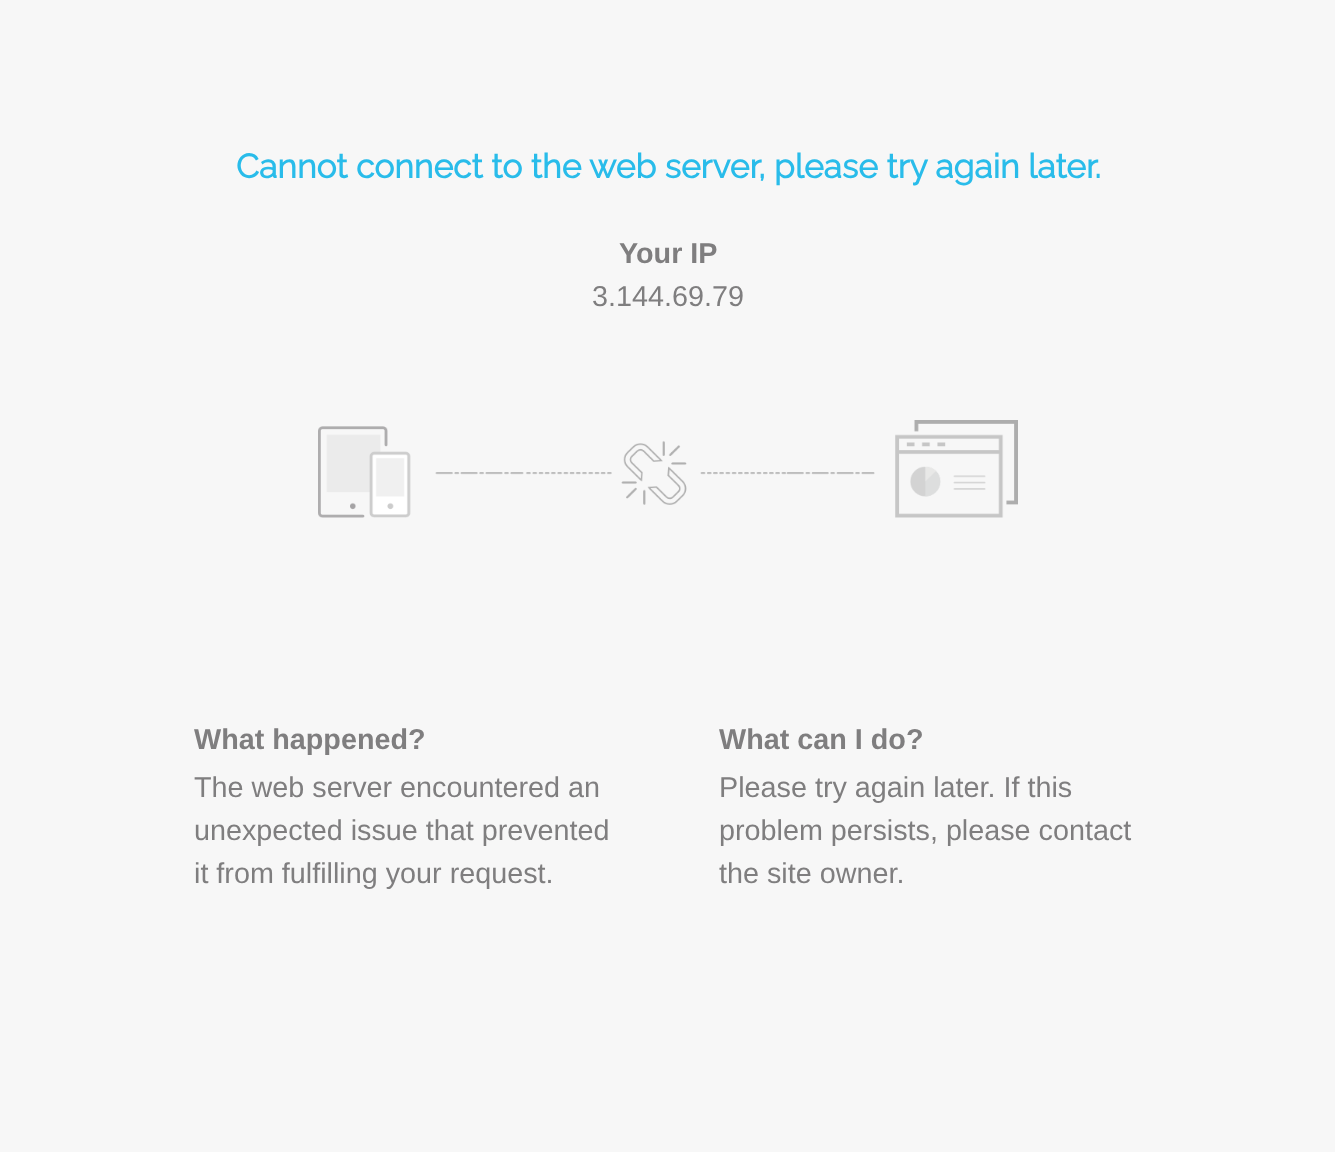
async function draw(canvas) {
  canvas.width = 1335;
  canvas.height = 1152;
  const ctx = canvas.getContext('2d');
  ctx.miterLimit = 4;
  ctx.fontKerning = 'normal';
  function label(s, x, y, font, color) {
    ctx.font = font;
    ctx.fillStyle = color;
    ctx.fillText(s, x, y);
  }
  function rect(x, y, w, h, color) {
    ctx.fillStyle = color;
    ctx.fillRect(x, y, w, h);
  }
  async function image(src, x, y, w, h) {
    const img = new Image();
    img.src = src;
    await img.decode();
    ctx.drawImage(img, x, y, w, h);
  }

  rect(0, 0, 1335, 1152, '#f7f7f7');
  label('Cannot connect to the web server, please try again later.', 236, 178, 'bold 33.6px Raleway', '#29bcea');
  label('Your IP', 619, 263, 'bold 28.75px Liberation Sans', '#7f7e7f');
  label('3.144.69.79', 592, 306, '28.75px Liberation Sans', '#7f7e7f');
  await image('assets/img1.png', 318, 420, 700, 98);
  label('What happened?', 194, 749, 'bold 28.75px Liberation Sans', '#7f7e7f');
  label('The web server encountered an', 194, 797, '28.75px Liberation Sans', '#7f7e7f');
  label('unexpected issue that prevented', 194, 840, '28.75px Liberation Sans', '#7f7e7f');
  label('it from fulfilling your request.', 194, 883, '28.75px Liberation Sans', '#7f7e7f');
  label('What can I do?', 719, 749, 'bold 28.75px Liberation Sans', '#7f7e7f');
  label('Please try again later. If this', 719, 797, '28.75px Liberation Sans', '#7f7e7f');
  label('problem persists, please contact', 719, 840, '28.75px Liberation Sans', '#7f7e7f');
  label('the site owner.', 719, 883, '28.75px Liberation Sans', '#7f7e7f');
}

draw(document.querySelector('canvas'));
